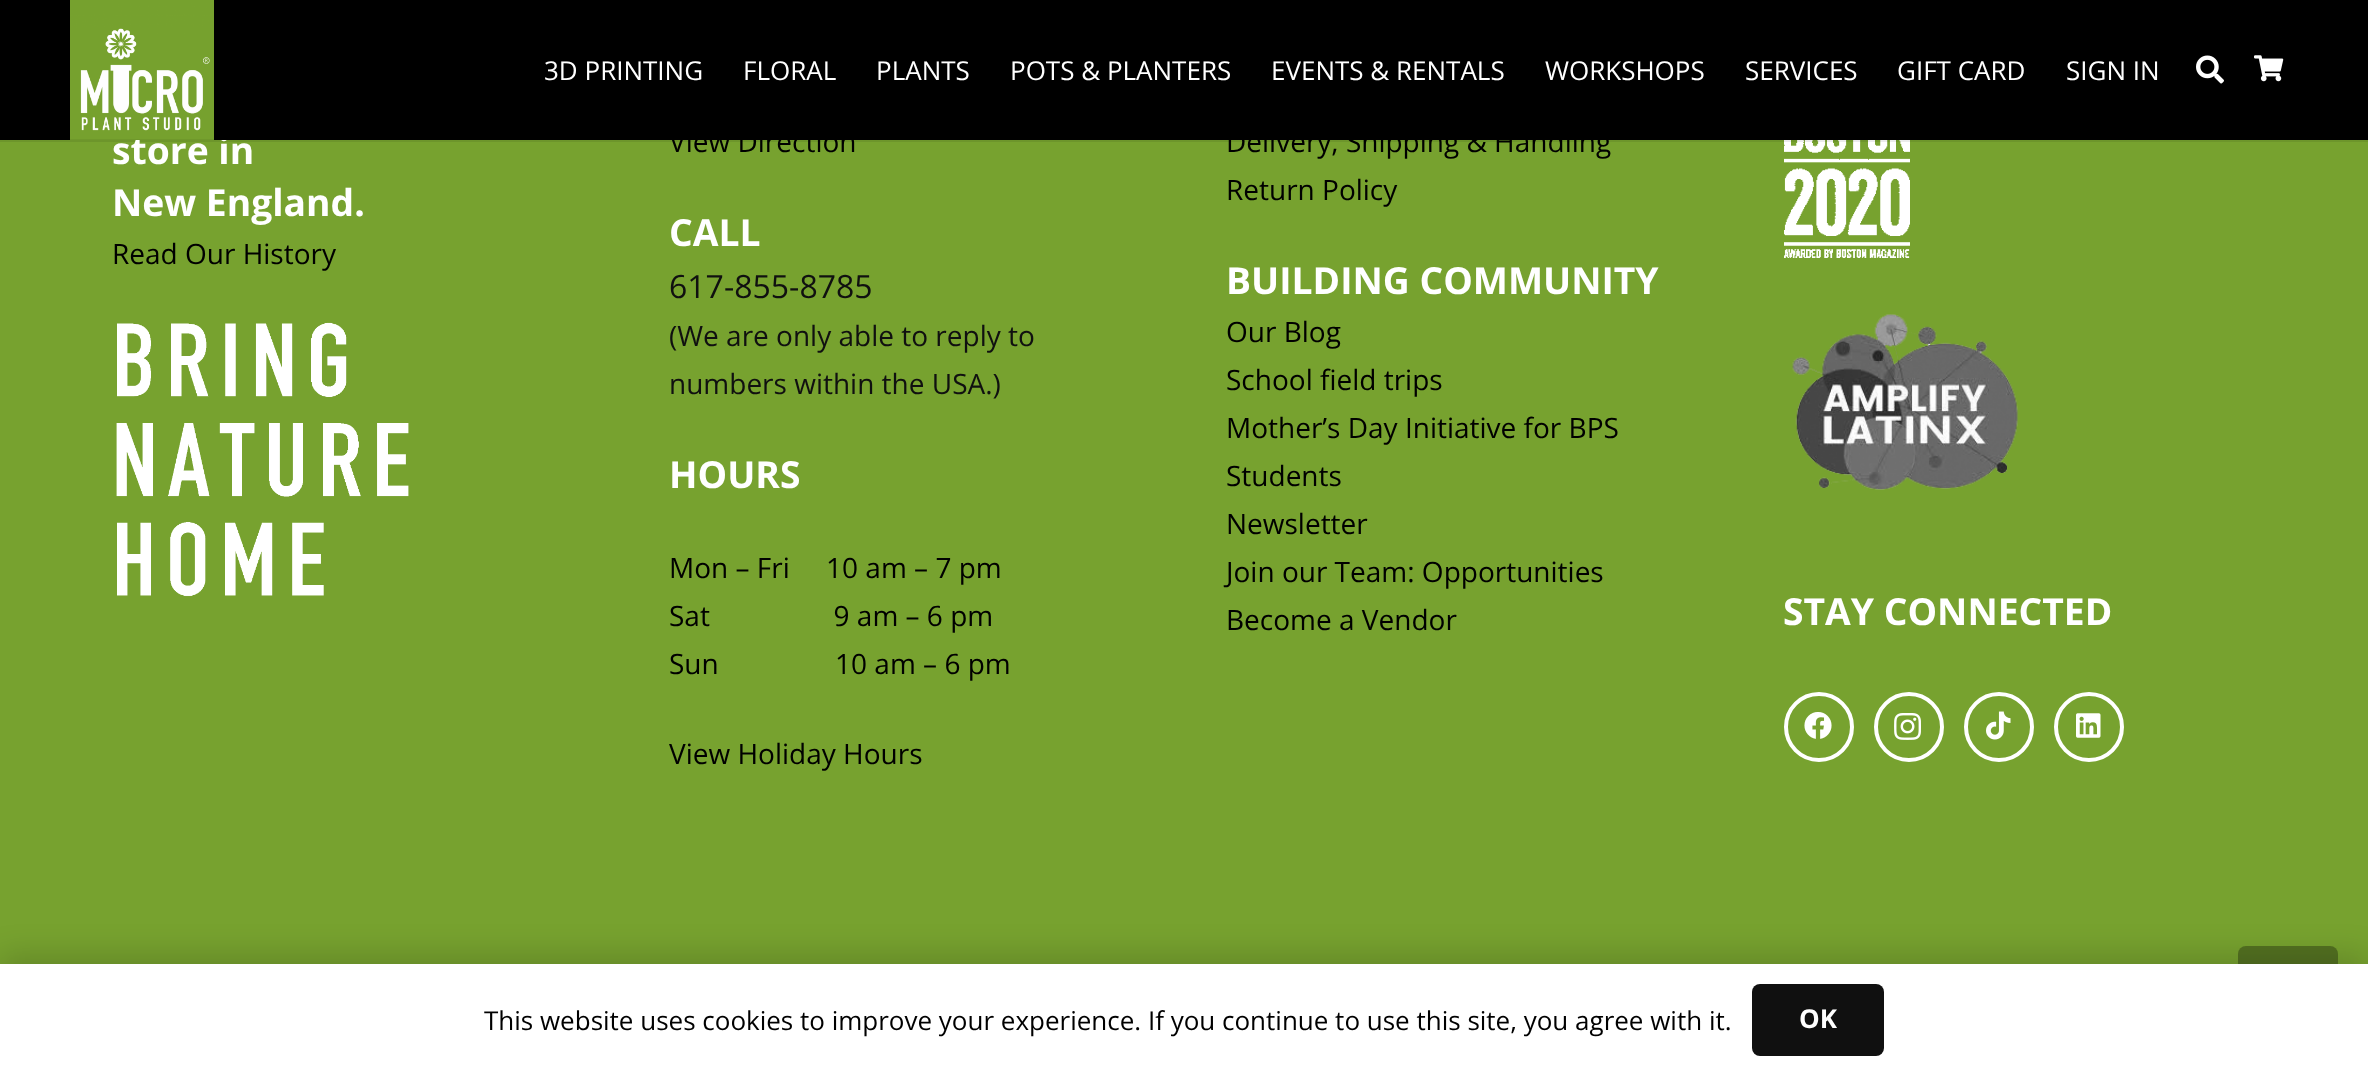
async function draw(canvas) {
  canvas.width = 2368;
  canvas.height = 1075;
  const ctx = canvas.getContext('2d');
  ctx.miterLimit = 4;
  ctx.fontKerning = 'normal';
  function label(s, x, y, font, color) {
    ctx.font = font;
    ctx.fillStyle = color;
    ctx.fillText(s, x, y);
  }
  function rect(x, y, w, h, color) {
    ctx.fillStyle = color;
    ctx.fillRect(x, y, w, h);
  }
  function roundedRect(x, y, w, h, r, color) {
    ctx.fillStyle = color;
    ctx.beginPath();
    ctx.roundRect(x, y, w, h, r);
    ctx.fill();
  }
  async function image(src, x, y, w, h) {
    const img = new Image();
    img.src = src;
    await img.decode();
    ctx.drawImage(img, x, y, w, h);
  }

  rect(0, 0, 2368, 1075, '#77a22f');
  await image('assets/img5.png', 1784, 140, 126, 118);
  rect(0, 140, 2368, 2, '#00000014');
  label('store in', 112, 164, 'bold 37.25px Open Sans', '#fff');
  rect(0, 0, 2368, 140, '#000');
  await image('assets/img1.png', 70, 0, 144, 140);
  label('3D PRINTING', 544, 80, '26px Open Sans', '#fff');
  label('FLORAL', 743, 80, '26px Open Sans', '#fff');
  label('PLANTS', 876, 80, '26px Open Sans', '#fff');
  label('POTS & PLANTERS', 1010, 80, '26px Open Sans', '#fff');
  label('EVENTS & RENTALS', 1271, 80, '26px Open Sans', '#fff');
  label('WORKSHOPS', 1545, 80, '26px Open Sans', '#fff');
  label('SERVICES', 1745, 80, '26px Open Sans', '#fff');
  label('GIFT CARD', 1897, 80, '26px Open Sans', '#fff');
  label('SIGN IN', 2066, 80, '26px Open Sans', '#fff');
  await image('assets/img2.png', 2196, 55, 28, 29);
  await image('assets/img3.png', 2254, 55, 30, 27);
  label('New England.', 112, 216, 'bold 37.25px Open Sans', '#fff');
  label('Read Our History', 112, 264, '28px Open Sans', '#000');
  await image('assets/img4.png', 116, 322, 293, 275);
  label('View Direction', 669, 152, '28px Open Sans', '#000');
  label('CALL', 669, 246, 'bold 37.25px Open Sans', '#fff');
  label('617-855-8785', 669, 298, '32px Open Sans', '#101010');
  label('(We are only able to reply to', 669, 346, '28px Open Sans', '#101010');
  label('numbers within the USA.)', 669, 394, '28px Open Sans', '#101010');
  label('HOURS', 669, 488, 'bold 37.25px Open Sans', '#fff');
  label('Mon – Fri     10 am – 7 pm', 669, 578, '28px Open Sans', '#000');
  label('Sat                 9 am – 6 pm', 669, 626, '28px Open Sans', '#000');
  label('Sun                10 am – 6 pm', 669, 674, '28px Open Sans', '#000');
  label('View Holiday Hours', 669, 764, '28px Open Sans', '#000');
  label('Delivery, Shipping & Handling', 1226, 152, '28px Open Sans', '#000');
  label('Return Policy', 1226, 200, '28px Open Sans', '#000');
  label('BUILDING COMMUNITY', 1226, 294, 'bold 37.25px Open Sans', '#fff');
  label('Our Blog', 1226, 342, '28px Open Sans', '#000');
  label('School field trips', 1226, 390, '28px Open Sans', '#000');
  label('Mother’s Day Initiative for BPS', 1226, 438, '28px Open Sans', '#000');
  label('Students', 1226, 486, '28px Open Sans', '#000');
  label('Newsletter', 1226, 534, '28px Open Sans', '#000');
  label('Join our Team: Opportunities', 1226, 582, '28px Open Sans', '#000');
  label('Become a Vendor', 1226, 630, '28px Open Sans', '#000');
  await image('assets/img6.png', 1792, 314, 226, 176);
  label('STAY CONNECTED', 1783, 625, 'bold 37.25px Open Sans', '#fff');
  ctx.beginPath();
  ctx.arc(1819, 727, 33, 0, 2 * Math.PI);
  ctx.strokeStyle = '#fff';
  ctx.lineWidth = 4;
  ctx.stroke();
  await image('assets/img7.png', 1804, 712, 28, 27);
  ctx.beginPath();
  ctx.arc(1909, 727, 33, 0, 2 * Math.PI);
  ctx.stroke();
  await image('assets/img8.png', 1894, 713, 27, 27);
  ctx.beginPath();
  ctx.arc(1999, 727, 33, 0, 2 * Math.PI);
  ctx.stroke();
  await image('assets/img9.png', 1986, 711, 25, 29);
  ctx.beginPath();
  ctx.arc(2089, 727, 33, 0, 2 * Math.PI);
  ctx.stroke();
  await image('assets/img10.png', 2076, 713, 25, 25);
  roundedRect(2238, 946, 100, 100, 8, '#537121');
  ctx.fillStyle = '#00000026';
  ctx.filter = 'blur(15px)';
  ctx.beginPath();
  ctx.rect(0, 954, 2368, 112);
  ctx.fill();
  ctx.filter = 'none';
  rect(0, 964, 2368, 111, '#fff');
  label('This website uses cookies to improve your experience. If you continue to use this site, you agree with it.', 484, 1030, '26px Open Sans', '#000');
  roundedRect(1752, 984, 132, 72, 8, '#101010');
  label('OK', 1799, 1028, 'bold 26px Open Sans', '#fff');
}

draw(document.querySelector('canvas'));
